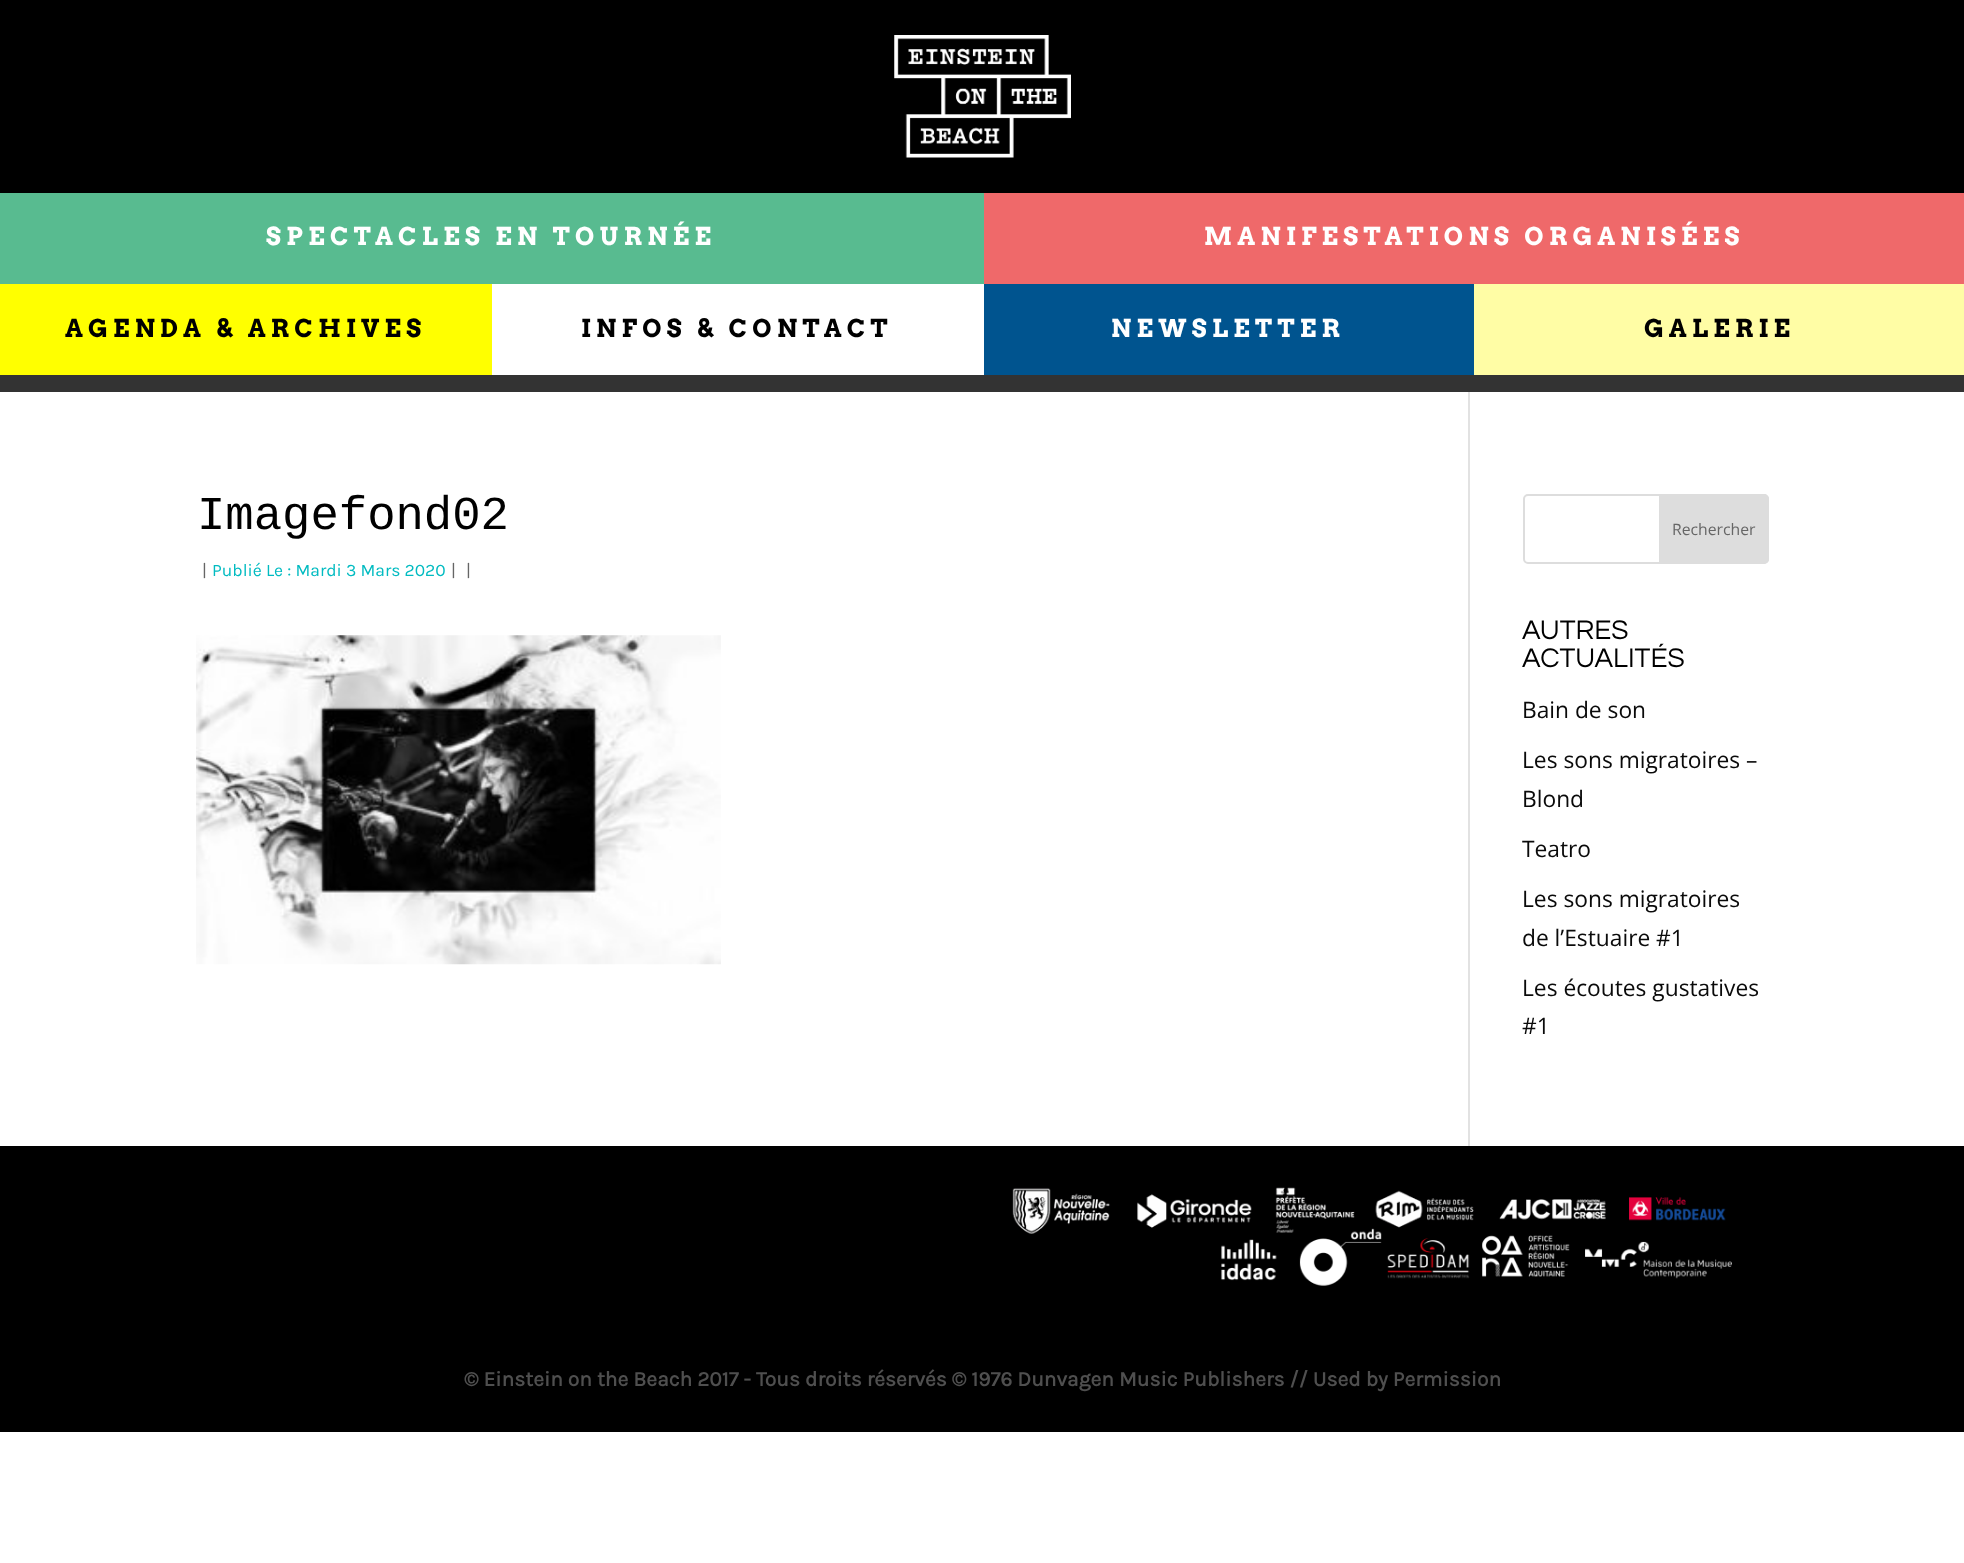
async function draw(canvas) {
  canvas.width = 1964;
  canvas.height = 1563;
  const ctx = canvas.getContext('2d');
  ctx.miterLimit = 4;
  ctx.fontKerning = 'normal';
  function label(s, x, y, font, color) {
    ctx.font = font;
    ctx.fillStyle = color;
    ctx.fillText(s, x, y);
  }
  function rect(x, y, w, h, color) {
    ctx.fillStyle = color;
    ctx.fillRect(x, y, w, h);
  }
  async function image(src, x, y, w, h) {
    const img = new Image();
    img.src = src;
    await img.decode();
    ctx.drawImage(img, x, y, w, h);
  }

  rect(0, 0, 1964, 1563, '#fff');
  rect(0, 0, 1964, 193, '#000');
  await image('assets/img1.png', 894, 35, 177, 123);
  rect(0, 193, 984, 91, '#58bb90');
  ctx.letterSpacing = '5.25px';
  label('SPECTACLES EN TOURNÉE', 266, 245, 'bold 24.5px Arvo', '#fff');
  rect(984, 193, 980, 91, '#ef696a');
  label('MANIFESTATIONS ORGANISÉES', 1204, 245, 'bold 24.5px Arvo', '#fff');
  rect(0, 375, 1964, 17, '#333');
  rect(0, 284, 492, 91, '#ff0');
  label('AGENDA & ARCHIVES', 65, 337, 'bold 24.5px Arvo', '#000');
  label('INFOS & CONTACT', 581, 337, 'bold 24.5px Arvo', '#000');
  rect(984, 284, 490, 91, '#00548f');
  label('NEWSLETTER', 1111, 337, 'bold 24.5px Arvo', '#fff');
  rect(1474, 284, 490, 91, '#fffda5');
  label('GALERIE', 1644, 337, 'bold 24.5px Arvo', '#000');
  rect(1468, 392, 2, 754, '#e2e2e2');
  ctx.letterSpacing = '0px';
  label('Imagefond02', 197, 529, '47.25px Liberation Mono', '#000');
  label('|', 202, 576, '17.5px Karla', '#666');
  label('Publié Le : Mardi 3 Mars 2020', 212, 576, '17.5px Karla', '#01bbc1');
  label('|', 451, 576, '17.5px Karla', '#666');
  label('|', 466, 576, '17.5px Karla', '#666');
  await image('assets/img2.png', 196, 635, 525, 330);
  ctx.beginPath();
  ctx.roundRect(1524, 495, 244, 68, 4);
  ctx.strokeStyle = '#ddd';
  ctx.lineWidth = 2;
  ctx.stroke();
  ctx.fillStyle = '#ddd';
  ctx.beginPath();
  ctx.roundRect(1660, 495, 108, 68, [0, 4, 4, 0]);
  ctx.fill();
  ctx.stroke();
  label('Rechercher', 1672, 535, '15.75px Open Sans', '#666');
  label('AUTRES', 1522, 639, '28px Questrial', '#000');
  label('ACTUALITÉS', 1522, 667, '28px Questrial', '#000');
  label('Bain de son', 1522, 718, '22.75px Open Sans', '#0a0a0a');
  label('Les sons migratoires –', 1522, 768, '22.75px Open Sans', '#0a0a0a');
  label('Blond', 1522, 807, '22.75px Open Sans', '#0a0a0a');
  label('Teatro', 1522, 857, '22.75px Open Sans', '#0a0a0a');
  label('Les sons migratoires', 1522, 907, '22.75px Open Sans', '#0a0a0a');
  label('de l’Estuaire #1', 1522, 946, '22.75px Open Sans', '#0a0a0a');
  label('Les écoutes gustatives', 1522, 996, '22.75px Open Sans', '#0a0a0a');
  label('#1', 1522, 1034, '22.75px Open Sans', '#0a0a0a');
  rect(0, 1146, 1964, 286, '#000');
  await image('assets/img3.png', 1012, 1187, 720, 99);
  label('© Einstein on the Beach 2017 - Tous droits réservés © 1976 Dunvagen Music Publishers // Used by Permission', 464, 1386, 'bold 21px Karla', '#4f4f4f');
}

draw(document.querySelector('canvas'));
